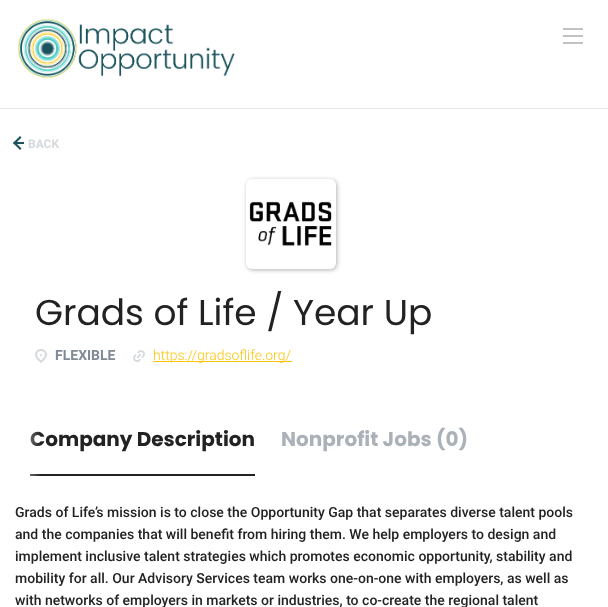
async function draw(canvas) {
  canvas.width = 608;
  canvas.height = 607;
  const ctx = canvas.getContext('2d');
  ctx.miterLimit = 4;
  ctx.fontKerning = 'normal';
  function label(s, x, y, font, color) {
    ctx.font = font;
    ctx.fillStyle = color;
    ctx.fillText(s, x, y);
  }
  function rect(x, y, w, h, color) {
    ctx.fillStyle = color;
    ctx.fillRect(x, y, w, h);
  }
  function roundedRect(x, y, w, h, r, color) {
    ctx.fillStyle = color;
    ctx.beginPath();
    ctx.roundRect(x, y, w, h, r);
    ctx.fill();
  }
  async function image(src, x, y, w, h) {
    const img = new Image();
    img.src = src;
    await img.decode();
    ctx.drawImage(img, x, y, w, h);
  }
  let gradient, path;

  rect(0, 0, 608, 607, '#fff');
  rect(0, 108, 608, 1, '#e4e6e8');
  await image('assets/img1.png', 17, 19, 218, 59);
  rect(563, 35, 20, 2, '#c2c2c2');
  rect(563, 28, 20, 2, '#c2c2c2');
  rect(563, 42, 20, 2, '#c2c2c2');
  ctx.fillStyle = '#1a535c';
  path = new Path2D('M14.5 141.5L21.5 148.5L20 150L13 143Z');
  ctx.fill(path);
  path = new Path2D('M20 136L21.5 137.5L14.5 144.5L13 143Z');
  ctx.fill(path);
  label('BACK', 28, 148, 'bold 12px Roboto', '#d5d8dc');
  rect(15, 142, 9, 2, '#1a535c');
  ctx.fillStyle = '#0000004d';
  ctx.filter = 'blur(2px)';
  ctx.beginPath();
  ctx.roundRect(247, 180, 90, 90, 6);
  ctx.fill();
  ctx.filter = 'none';
  roundedRect(246, 179, 90, 90, 6, '#fff');
  await image('assets/img2.png', 249, 201, 83, 45);
  label('Grads of Life / Year Up', 35, 325, '36px Poppins', '#222');
  await image('assets/img3.png', 35, 349, 12, 14);
  label('FLEXIBLE', 55, 360, 'bold 14px Roboto', '#818b96');
  await image('assets/img4.png', 133, 350, 12, 12);
  rect(153, 361, 139, 1, '#fbc40c');
  label('https://gradsoflife.org/', 153, 360, '300 14px Roboto', '#fbc40c');
  rect(30, 474, 225, 2, '#222');
  label('Company Description', 30, 446, 'bold 20px Poppins', '#222');
  label('Nonprofit Jobs (0)', 281, 446, 'bold 20px Poppins', '#abb1b9');
  gradient = ctx.createLinearGradient(5, 455, 65, 455);
  gradient.addColorStop(0, '#fff');
  gradient.addColorStop(0.6, '#ffffff00');
  gradient.addColorStop(1, '#ffffff00');
  ctx.fillStyle = gradient;
  ctx.fillRect(30, 431, 10, 45);
  label('Grads of Life’s mission is to close the Opportunity Gap that separates diverse talent pools', 15, 517, '500 14px Roboto', '#222');
  label('and the companies that will benefit from hiring them. We help employers to design and', 15, 539, '500 14px Roboto', '#222');
  label('implement inclusive talent strategies which promotes economic opportunity, stability and', 15, 561, '500 14px Roboto', '#222');
  label('mobility for all. Our Advisory Services team works one-on-one with employers, as well as', 15, 583, '500 14px Roboto', '#222');
  label('with networks of employers in markets or industries, to co-create the regional talent', 15, 605, '500 14px Roboto', '#222');
}

draw(document.querySelector('canvas'));
